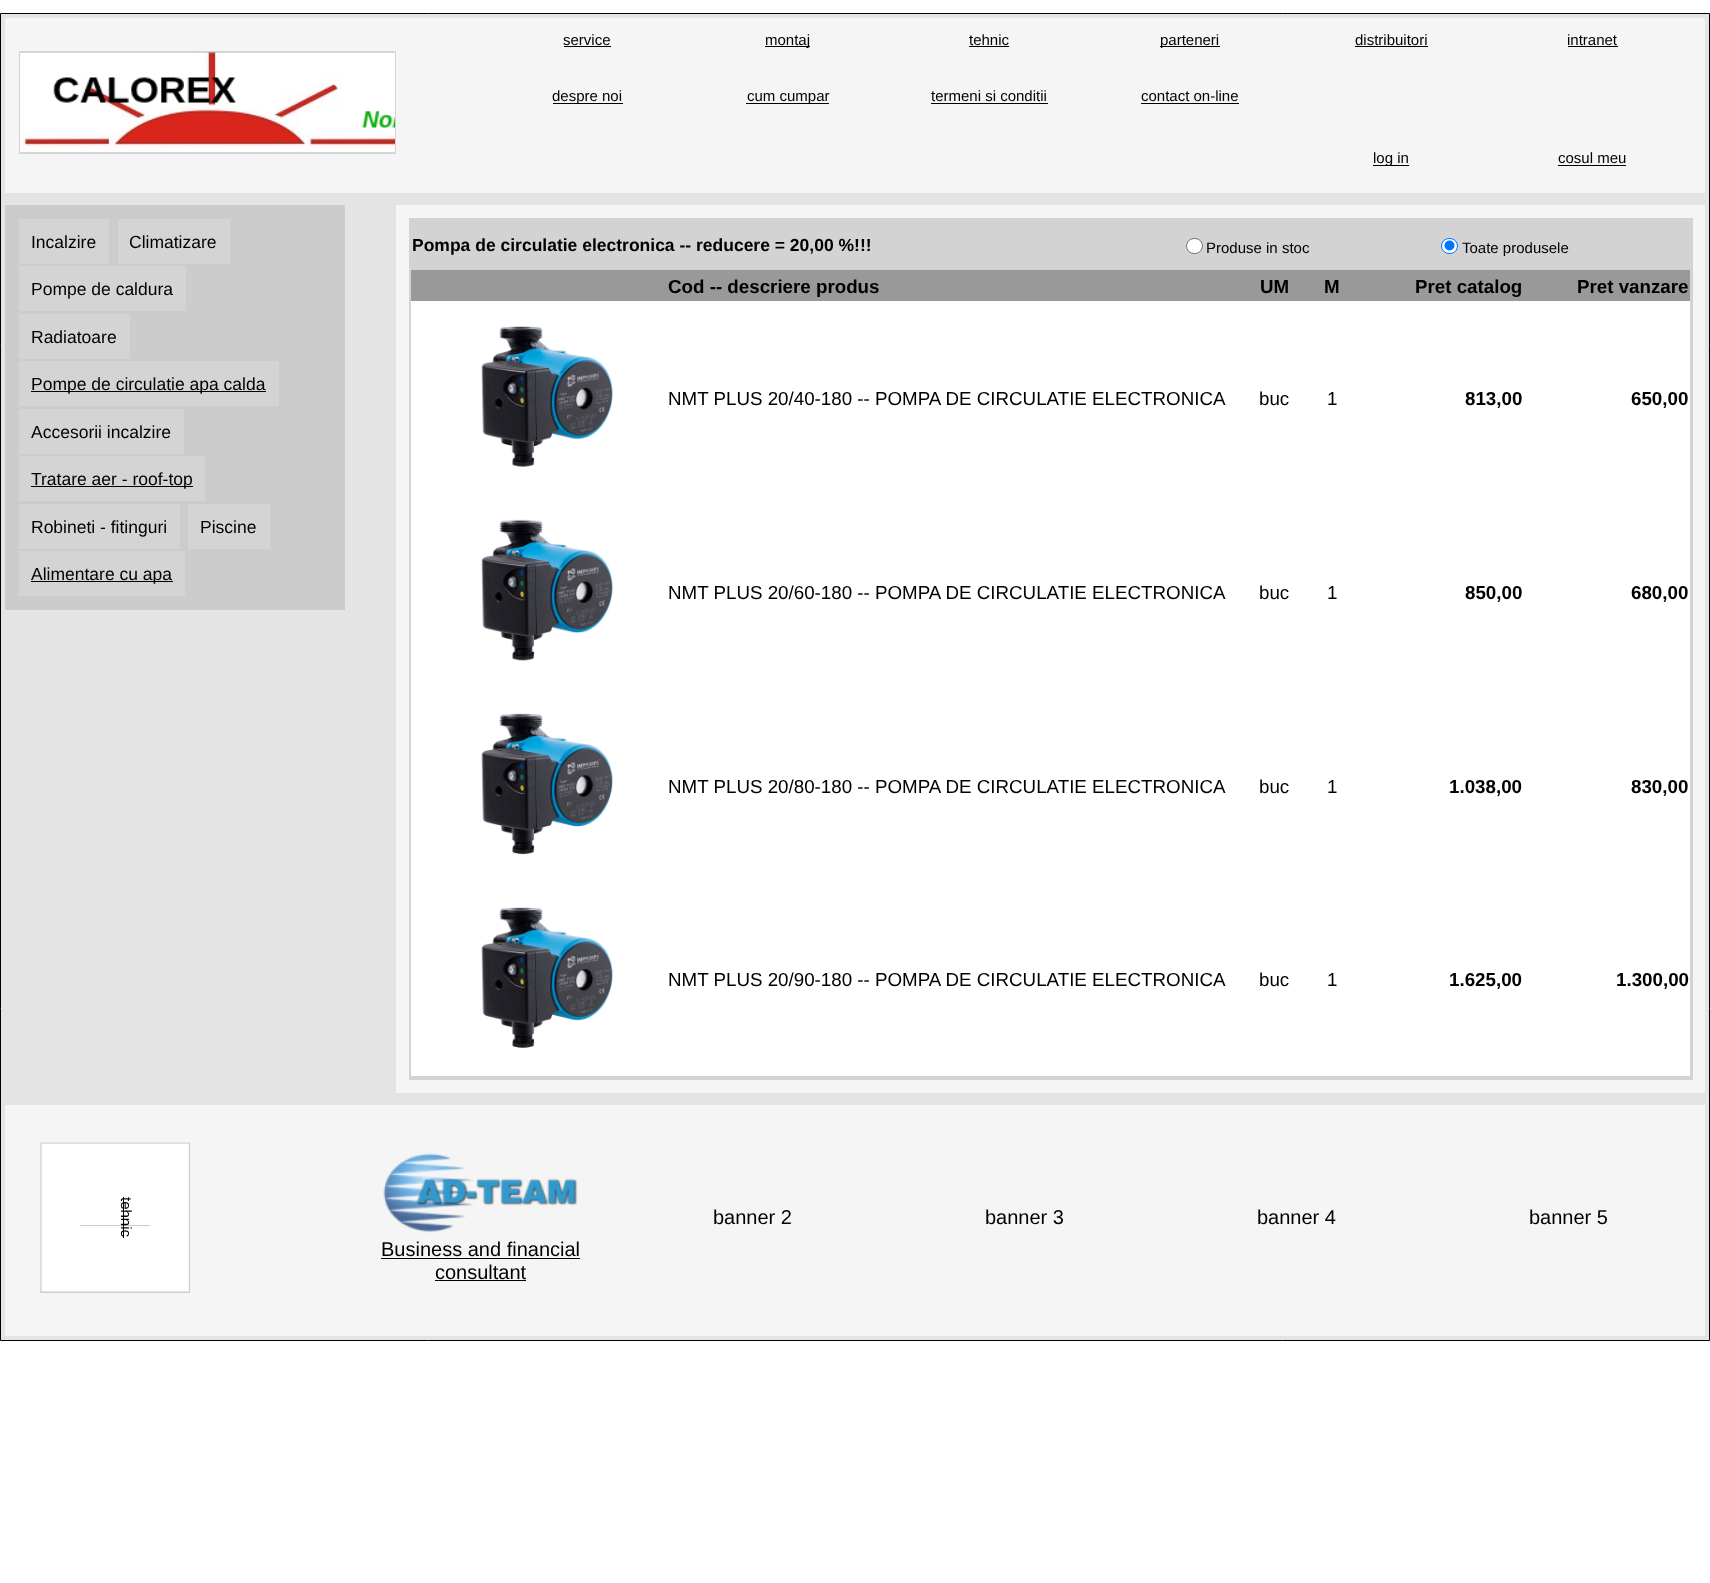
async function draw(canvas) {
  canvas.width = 1710;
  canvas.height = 1583;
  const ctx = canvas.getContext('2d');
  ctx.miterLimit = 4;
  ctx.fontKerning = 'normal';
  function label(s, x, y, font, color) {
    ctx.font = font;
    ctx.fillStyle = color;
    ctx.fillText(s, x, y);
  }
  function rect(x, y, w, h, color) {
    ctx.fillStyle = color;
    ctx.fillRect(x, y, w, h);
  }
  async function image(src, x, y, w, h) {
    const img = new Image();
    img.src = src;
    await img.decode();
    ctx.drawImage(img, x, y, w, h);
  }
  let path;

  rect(0, 0, 1710, 1583, '#fff');
  ctx.fillStyle = '#e4e4e4';
  ctx.beginPath();
  ctx.rect(0.5, 13.5, 1709, 1327);
  ctx.fill();
  ctx.strokeStyle = '#000';
  ctx.stroke();
  rect(5, 18, 1700, 175, '#f5f5f5');
  label('service', 563, 45, '15px Liberation Sans', '#000');
  rect(564, 46, 47, 1, '#000');
  rect(765, 46, 45, 1, '#000');
  label('montaj', 765, 45, '15px Liberation Sans', '#000');
  label('tehnic', 969, 45, '15px Liberation Sans', '#000');
  rect(969, 46, 40, 1, '#000');
  rect(1160, 46, 60, 1, '#000');
  label('parteneri', 1160, 45, '15px Liberation Sans', '#000');
  label('distribuitori', 1355, 45, '15px Liberation Sans', '#000');
  rect(1355, 46, 73, 1, '#000');
  label('intranet', 1567, 45, '15px Liberation Sans', '#000');
  rect(1568, 46, 50, 1, '#000');
  ctx.fillStyle = '#afafaf';
  ctx.beginPath();
  ctx.rect(19.5, 51.5, 376, 102);
  ctx.fill();
  ctx.strokeStyle = '#d3d3d3';
  ctx.stroke();
  await image('assets/img1.png', 20, 52, 375, 101);
  rect(553, 103, 70, 1, '#000');
  label('despre noi', 552, 101, '15px Liberation Sans', '#000');
  rect(746, 103, 83, 1, '#000');
  label('cum cumpar', 747, 101, '15px Liberation Sans', '#000');
  label('termeni si conditii', 931, 101, '15px Liberation Sans', '#000');
  rect(931, 103, 117, 1, '#000');
  label('contact on-line', 1141, 101, '15px Liberation Sans', '#000');
  rect(1141, 103, 98, 1, '#000');
  rect(1373, 165, 36, 1, '#000');
  label('log in', 1373, 163, '15px Liberation Sans', '#000');
  label('cosul meu', 1558, 163, '15px Liberation Sans', '#000');
  rect(1558, 165, 68, 1, '#000');
  rect(5, 205, 340, 405, '#ccc');
  rect(19, 219, 90, 45, '#d4d4d4');
  label('Incalzire', 31, 248, '17.5px Liberation Sans', '#000');
  rect(118, 219, 112, 45, '#d4d4d4');
  label('Climatizare', 129, 248, '17.5px Liberation Sans', '#000');
  rect(19, 266, 167, 45, '#d4d4d4');
  label('Pompe de caldura', 31, 295, '17.5px Liberation Sans', '#000');
  rect(19, 314, 111, 45, '#d4d4d4');
  label('Radiatoare', 31, 343, '17.5px Liberation Sans', '#000');
  rect(19, 361, 260, 45, '#d4d4d4');
  rect(31, 391, 235, 1, '#000');
  label('Pompe de circulatie apa calda', 31, 390, '17.5px Liberation Sans', '#000');
  rect(19, 409, 165, 45, '#d4d4d4');
  label('Accesorii incalzire', 31, 438, '17.5px Liberation Sans', '#000');
  rect(19, 456, 186, 45, '#d4d4d4');
  rect(31, 486, 162, 1, '#000');
  label('Tratare aer - roof-top', 31, 485, '17.5px Liberation Sans', '#000');
  rect(19, 504, 161, 45, '#d4d4d4');
  label('Robineti - fitinguri', 31, 533, '17.5px Liberation Sans', '#000');
  rect(188, 504, 82, 45, '#d4d4d4');
  label('Piscine', 200, 533, '17.5px Liberation Sans', '#000');
  rect(19, 551, 166, 45, '#d4d4d4');
  rect(31, 581, 142, 1, '#000');
  label('Alimentare cu apa', 31, 580, '17.5px Liberation Sans', '#000');
  rect(396, 205, 1309, 888, '#f5f5f5');
  rect(409, 218, 1284, 862, '#d3d3d3');
  label('Pompa de circulatie electronica -- reducere = 20,00 %!!!', 412, 251, 'bold 17.5px Liberation Sans', '#000');
  ctx.fillStyle = '#fff';
  ctx.beginPath();
  ctx.roundRect(1186.5, 238.5, 16, 15, 7.5);
  ctx.fill();
  ctx.strokeStyle = '#767676';
  ctx.stroke();
  label('Produse in stoc', 1206, 253, '15px Liberation Sans', '#000');
  ctx.fillStyle = '#fff';
  ctx.beginPath();
  ctx.roundRect(1441.5, 238.5, 16, 15, 7.5);
  ctx.fill();
  ctx.strokeStyle = '#0075ff';
  ctx.stroke();
  ctx.fillStyle = '#0075ff';
  ctx.beginPath();
  ctx.arc(1449.5, 245.5, 5, 0, 2 * Math.PI);
  ctx.fill();
  label('Toate produsele', 1462, 253, '15px Liberation Sans', '#000');
  rect(411, 270, 1279, 31, '#999');
  label('Cod -- descriere produs', 668, 293, 'bold 18.75px Liberation Sans', '#000');
  label('UM', 1260, 293, 'bold 18.75px Liberation Sans', '#000');
  label('M', 1324, 293, 'bold 18.75px Liberation Sans', '#000');
  label('Pret catalog', 1415, 293, 'bold 18.75px Liberation Sans', '#000');
  label('Pret vanzare', 1577, 293, 'bold 18.75px Liberation Sans', '#000');
  rect(411, 301, 1279, 775, '#fff');
  await image('assets/img2.png', 481, 326, 132, 141);
  label('NMT PLUS 20/40-180 -- POMPA DE CIRCULATIE ELECTRONICA', 668, 405, '18.75px Liberation Sans', '#000');
  label('buc', 1259, 405, '18.75px Liberation Sans', '#000');
  label('1', 1327, 405, '18.75px Liberation Sans', '#000');
  label('813,00', 1465, 405, 'bold 18.75px Liberation Sans', '#000');
  label('650,00', 1631, 405, 'bold 18.75px Liberation Sans', '#000');
  await image('assets/img3.png', 481, 519, 132, 142);
  label('NMT PLUS 20/60-180 -- POMPA DE CIRCULATIE ELECTRONICA', 668, 599, '18.75px Liberation Sans', '#000');
  label('buc', 1259, 599, '18.75px Liberation Sans', '#000');
  label('1', 1327, 599, '18.75px Liberation Sans', '#000');
  label('850,00', 1465, 599, 'bold 18.75px Liberation Sans', '#000');
  label('680,00', 1631, 599, 'bold 18.75px Liberation Sans', '#000');
  await image('assets/img4.png', 481, 713, 132, 142);
  label('NMT PLUS 20/80-180 -- POMPA DE CIRCULATIE ELECTRONICA', 668, 793, '18.75px Liberation Sans', '#000');
  label('buc', 1259, 793, '18.75px Liberation Sans', '#000');
  label('1', 1327, 793, '18.75px Liberation Sans', '#000');
  label('1.038,00', 1449, 793, 'bold 18.75px Liberation Sans', '#000');
  label('830,00', 1631, 793, 'bold 18.75px Liberation Sans', '#000');
  await image('assets/img5.png', 481, 907, 132, 141);
  label('NMT PLUS 20/90-180 -- POMPA DE CIRCULATIE ELECTRONICA', 668, 986, '18.75px Liberation Sans', '#000');
  label('buc', 1259, 986, '18.75px Liberation Sans', '#000');
  label('1', 1327, 986, '18.75px Liberation Sans', '#000');
  label('1.625,00', 1449, 986, 'bold 18.75px Liberation Sans', '#000');
  label('1.300,00', 1616, 986, 'bold 18.75px Liberation Sans', '#000');
  rect(5, 1105, 1700, 231, '#f5f5f5');
  ctx.fillStyle = '#fdfdfd';
  ctx.beginPath();
  ctx.rect(40.5, 1143.5, 149, 149);
  ctx.fill();
  ctx.strokeStyle = '#ccc';
  ctx.stroke();
  rect(80, 1225, 70, 1, '#000');
  rect(40, 1142, 150, 150, '#ffffffcc');
  path = new Path2D('M41 1143V1292H189.5V1143Z');
  ctx.lineWidth = 1.2;
  ctx.stroke(path);
  rect(123, 1197, 1, 41, '#000');
  ctx.font = '15px Liberation Sans';
  ctx.save();
  ctx.translate(121, 1197);
  ctx.rotate(90 * Math.PI / 180);
  ctx.fillText('tehnic', 0, 0);
  ctx.restore();
  label('banner 2', 713, 1224, '20px Liberation Sans', '#000');
  label('banner 3', 985, 1224, '20px Liberation Sans', '#000');
  label('banner 4', 1257, 1224, '20px Liberation Sans', '#000');
  label('banner 5', 1529, 1224, '20px Liberation Sans', '#000');
  await image('assets/img6.png', 383, 1153, 195, 80);
  label('Business and financial', 381, 1256, '20px Liberation Sans', '#000');
  rect(381, 1258, 199, 1, '#000');
  label('consultant', 435, 1279, '20px Liberation Sans', '#000');
  rect(435, 1280, 91, 1, '#000');
}

draw(document.querySelector('canvas'));
